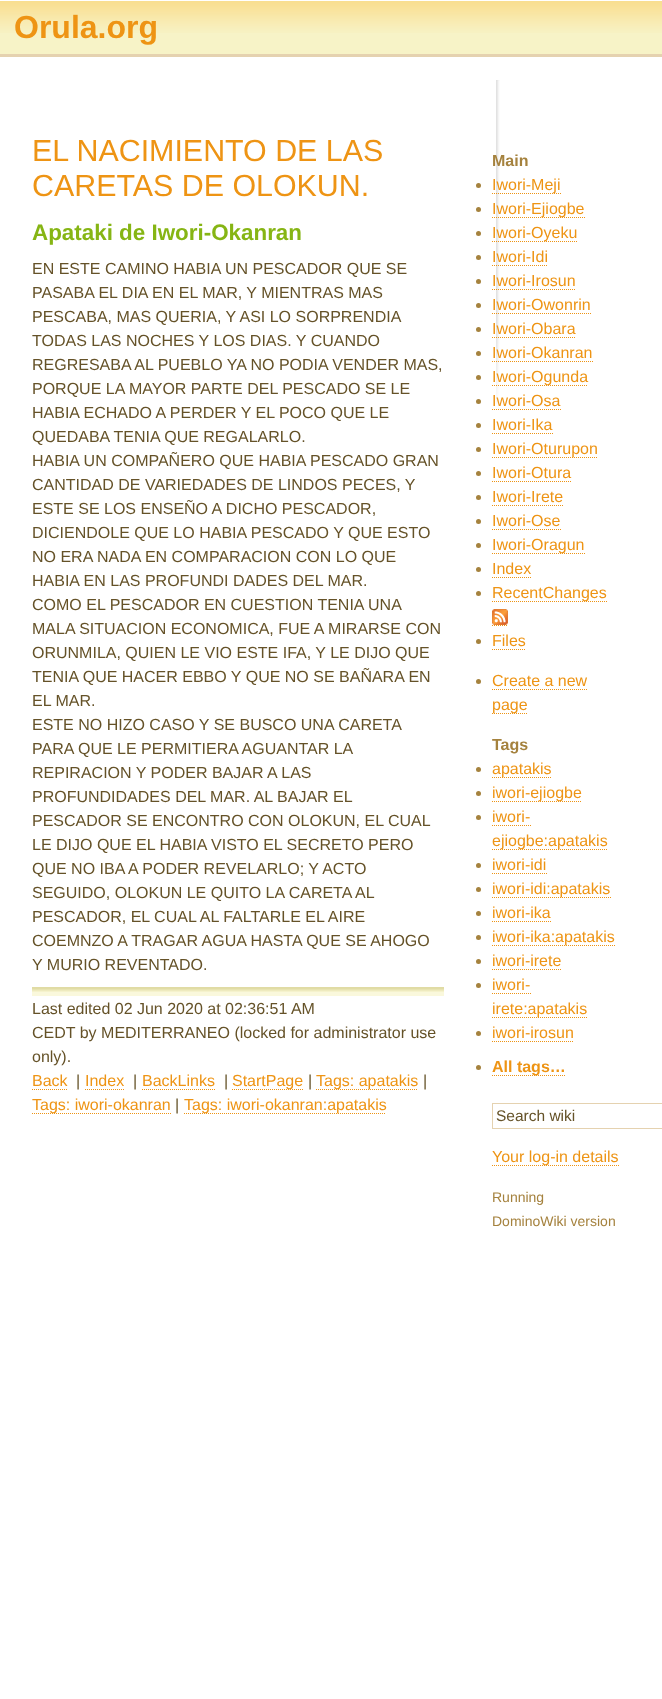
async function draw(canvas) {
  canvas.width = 662;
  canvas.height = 1699;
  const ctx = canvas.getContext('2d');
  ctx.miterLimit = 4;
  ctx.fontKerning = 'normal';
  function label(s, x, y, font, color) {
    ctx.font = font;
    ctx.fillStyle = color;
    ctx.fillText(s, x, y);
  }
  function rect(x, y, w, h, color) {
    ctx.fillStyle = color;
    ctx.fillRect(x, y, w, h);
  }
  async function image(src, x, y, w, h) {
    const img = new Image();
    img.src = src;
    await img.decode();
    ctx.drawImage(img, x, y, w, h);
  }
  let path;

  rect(0, 0, 662, 1699, '#fff');
  rect(0, 33, 662, 21, '#f7f3c7');
  await image('assets/img1.png', 0, 1, 662, 32);
  rect(0, 54, 662, 3, '#e5d2b0');
  label('Orula.org', 14, 38, 'bold 32px Liberation Sans', '#ee9414');
  await image('assets/img2.png', 496, 80, 4, 324);
  label('EL NACIMIENTO DE LAS', 32, 161, '30.4px Liberation Sans', '#ee9414');
  label('CARETAS DE OLOKUN.', 32, 196, '30.4px Liberation Sans', '#ee9414');
  label('Apataki de Iwori-Okanran', 32, 240, 'bold 22.4px Liberation Sans', '#86b514');
  label('EN ESTE CAMINO HABIA UN PESCADOR QUE SE', 32, 274, '16px Liberation Sans', '#655228');
  label('PASABA EL DIA EN EL MAR, Y MIENTRAS MAS', 32, 298, '16px Liberation Sans', '#655228');
  label('PESCABA, MAS QUERIA, Y ASI LO SORPRENDIA', 32, 322, '16px Liberation Sans', '#655228');
  label('TODAS LAS NOCHES Y LOS DIAS. Y CUANDO', 32, 346, '16px Liberation Sans', '#655228');
  label('REGRESABA AL PUEBLO YA NO PODIA VENDER MAS,', 32, 370, '16px Liberation Sans', '#655228');
  label('PORQUE LA MAYOR PARTE DEL PESCADO SE LE', 32, 394, '16px Liberation Sans', '#655228');
  label('HABIA ECHADO A PERDER Y EL POCO QUE LE', 32, 418, '16px Liberation Sans', '#655228');
  label('QUEDABA TENIA QUE REGALARLO.', 32, 442, '16px Liberation Sans', '#655228');
  label('HABIA UN COMPAÑERO QUE HABIA PESCADO GRAN', 32, 466, '16px Liberation Sans', '#655228');
  label('CANTIDAD DE VARIEDADES DE LINDOS PECES, Y', 32, 490, '16px Liberation Sans', '#655228');
  label('ESTE SE LOS ENSEÑO A DICHO PESCADOR,', 32, 514, '16px Liberation Sans', '#655228');
  label('DICIENDOLE QUE LO HABIA PESCADO Y QUE ESTO', 32, 538, '16px Liberation Sans', '#655228');
  label('NO ERA NADA EN COMPARACION CON LO QUE', 32, 562, '16px Liberation Sans', '#655228');
  label('HABIA EN LAS PROFUNDI DADES DEL MAR.', 32, 586, '16px Liberation Sans', '#655228');
  label('COMO EL PESCADOR EN CUESTION TENIA UNA', 32, 610, '16px Liberation Sans', '#655228');
  label('MALA SITUACION ECONOMICA, FUE A MIRARSE CON', 32, 634, '16px Liberation Sans', '#655228');
  label('ORUNMILA, QUIEN LE VIO ESTE IFA, Y LE DIJO QUE', 32, 658, '16px Liberation Sans', '#655228');
  label('TENIA QUE HACER EBBO Y QUE NO SE BAÑARA EN', 32, 682, '16px Liberation Sans', '#655228');
  label('EL MAR.', 32, 706, '16px Liberation Sans', '#655228');
  label('ESTE NO HIZO CASO Y SE BUSCO UNA CARETA', 32, 730, '16px Liberation Sans', '#655228');
  label('PARA QUE LE PERMITIERA AGUANTAR LA', 32, 754, '16px Liberation Sans', '#655228');
  label('REPIRACION Y PODER BAJAR A LAS', 32, 778, '16px Liberation Sans', '#655228');
  label('PROFUNDIDADES DEL MAR. AL BAJAR EL', 32, 802, '16px Liberation Sans', '#655228');
  label('PESCADOR SE ENCONTRO CON OLOKUN, EL CUAL', 32, 826, '16px Liberation Sans', '#655228');
  label('LE DIJO QUE EL HABIA VISTO EL SECRETO PERO', 32, 850, '16px Liberation Sans', '#655228');
  label('QUE NO IBA A PODER REVELARLO; Y ACTO', 32, 874, '16px Liberation Sans', '#655228');
  label('SEGUIDO, OLOKUN LE QUITO LA CARETA AL', 32, 898, '16px Liberation Sans', '#655228');
  label('PESCADOR, EL CUAL AL FALTARLE EL AIRE', 32, 922, '16px Liberation Sans', '#655228');
  label('COEMNZO A TRAGAR AGUA HASTA QUE SE AHOGO', 32, 946, '16px Liberation Sans', '#655228');
  label('Y MURIO REVENTADO.', 32, 970, '16px Liberation Sans', '#655228');
  await image('assets/img3.png', 32, 987, 412, 9);
  label('Last edited 02 Jun 2020 at 02:36:51 AM', 32, 1014, '16px Liberation Sans', '#655228');
  label('CEDT by MEDITERRANEO (locked for administrator use', 32, 1038, '16px Liberation Sans', '#655228');
  label('only).', 32, 1062, '16px Liberation Sans', '#655228');
  label('Back', 32, 1086, '16px Liberation Sans', '#ee9414');
  path = new Path2D('M32 1089.5H68');
  ctx.strokeStyle = '#ee9414';
  ctx.setLineDash([1, 1]);
  ctx.stroke(path);
  label('|', 76, 1086, '16px Liberation Sans', '#655228');
  label('Index', 85, 1086, '16px Liberation Sans', '#ee9414');
  path = new Path2D('M85 1089.5H124');
  ctx.stroke(path);
  label('|', 133, 1086, '16px Liberation Sans', '#655228');
  label('BackLinks', 142, 1086, '16px Liberation Sans', '#ee9414');
  path = new Path2D('M142 1089.5H215');
  ctx.stroke(path);
  label('|', 224, 1086, '16px Liberation Sans', '#655228');
  path = new Path2D('M232 1089.5H303');
  ctx.stroke(path);
  label('StartPage', 232, 1086, '16px Liberation Sans', '#ee9414');
  label('|', 308, 1086, '16px Liberation Sans', '#655228');
  path = new Path2D('M316 1089.5H418');
  ctx.stroke(path);
  label('Tags: apatakis', 316, 1086, '16px Liberation Sans', '#ee9414');
  label('|', 423, 1086, '16px Liberation Sans', '#655228');
  path = new Path2D('M32 1113.5H171');
  ctx.stroke(path);
  label('Tags: iwori-okanran', 32, 1110, '16px Liberation Sans', '#ee9414');
  label('|', 175, 1110, '16px Liberation Sans', '#655228');
  path = new Path2D('M184 1113.5H386');
  ctx.stroke(path);
  label('Tags: iwori-okanran:apatakis', 184, 1110, '16px Liberation Sans', '#ee9414');
  label('Main', 492, 166, 'bold 16px Liberation Sans', '#a5823e');
  ctx.beginPath();
  ctx.arc(478.5, 185.5, 2.5, 0, 2 * Math.PI);
  ctx.fill();
  path = new Path2D('M492 193.5H561');
  ctx.stroke(path);
  label('Iwori-Meji', 492, 190, '16px Liberation Sans', '#ee9414');
  ctx.fillStyle = '#a5823e';
  ctx.beginPath();
  ctx.arc(478.5, 209.5, 2.5, 0, 2 * Math.PI);
  ctx.fill();
  path = new Path2D('M492 217.5H585');
  ctx.stroke(path);
  label('Iwori-Ejiogbe', 492, 214, '16px Liberation Sans', '#ee9414');
  ctx.fillStyle = '#a5823e';
  ctx.beginPath();
  ctx.arc(478.5, 233.5, 2.5, 0, 2 * Math.PI);
  ctx.fill();
  path = new Path2D('M492 241.5H578');
  ctx.stroke(path);
  label('Iwori-Oyeku', 492, 238, '16px Liberation Sans', '#ee9414');
  ctx.fillStyle = '#a5823e';
  ctx.beginPath();
  ctx.arc(478.5, 257.5, 2.5, 0, 2 * Math.PI);
  ctx.fill();
  label('Iwori-Idi', 492, 262, '16px Liberation Sans', '#ee9414');
  path = new Path2D('M492 265.5H548');
  ctx.stroke(path);
  ctx.fillStyle = '#a5823e';
  ctx.beginPath();
  ctx.arc(478.5, 281.5, 2.5, 0, 2 * Math.PI);
  ctx.fill();
  label('Iwori-Irosun', 492, 286, '16px Liberation Sans', '#ee9414');
  path = new Path2D('M492 289.5H576');
  ctx.stroke(path);
  ctx.fillStyle = '#a5823e';
  ctx.beginPath();
  ctx.arc(478.5, 305.5, 2.5, 0, 2 * Math.PI);
  ctx.fill();
  label('Iwori-Owonrin', 492, 310, '16px Liberation Sans', '#ee9414');
  path = new Path2D('M492 313.5H591');
  ctx.stroke(path);
  ctx.fillStyle = '#a5823e';
  ctx.beginPath();
  ctx.arc(478.5, 329.5, 2.5, 0, 2 * Math.PI);
  ctx.fill();
  label('Iwori-Obara', 492, 334, '16px Liberation Sans', '#ee9414');
  path = new Path2D('M492 337.5H576');
  ctx.stroke(path);
  ctx.fillStyle = '#a5823e';
  ctx.beginPath();
  ctx.arc(478.5, 353.5, 2.5, 0, 2 * Math.PI);
  ctx.fill();
  label('Iwori-Okanran', 492, 358, '16px Liberation Sans', '#ee9414');
  path = new Path2D('M492 361.5H593');
  ctx.stroke(path);
  ctx.fillStyle = '#a5823e';
  ctx.beginPath();
  ctx.arc(478.5, 377.5, 2.5, 0, 2 * Math.PI);
  ctx.fill();
  path = new Path2D('M492 385.5H588');
  ctx.stroke(path);
  label('Iwori-Ogunda', 492, 382, '16px Liberation Sans', '#ee9414');
  ctx.fillStyle = '#a5823e';
  ctx.beginPath();
  ctx.arc(478.5, 401.5, 2.5, 0, 2 * Math.PI);
  ctx.fill();
  label('Iwori-Osa', 492, 406, '16px Liberation Sans', '#ee9414');
  path = new Path2D('M492 409.5H561');
  ctx.stroke(path);
  ctx.fillStyle = '#a5823e';
  ctx.beginPath();
  ctx.arc(478.5, 425.5, 2.5, 0, 2 * Math.PI);
  ctx.fill();
  label('Iwori-Ika', 492, 430, '16px Liberation Sans', '#ee9414');
  path = new Path2D('M492 433.5H553');
  ctx.stroke(path);
  ctx.fillStyle = '#a5823e';
  ctx.beginPath();
  ctx.arc(478.5, 449.5, 2.5, 0, 2 * Math.PI);
  ctx.fill();
  path = new Path2D('M492 457.5H598');
  ctx.stroke(path);
  label('Iwori-Oturupon', 492, 454, '16px Liberation Sans', '#ee9414');
  ctx.fillStyle = '#a5823e';
  ctx.beginPath();
  ctx.arc(478.5, 473.5, 2.5, 0, 2 * Math.PI);
  ctx.fill();
  label('Iwori-Otura', 492, 478, '16px Liberation Sans', '#ee9414');
  path = new Path2D('M492 481.5H572');
  ctx.stroke(path);
  ctx.fillStyle = '#a5823e';
  ctx.beginPath();
  ctx.arc(478.5, 497.5, 2.5, 0, 2 * Math.PI);
  ctx.fill();
  label('Iwori-Irete', 492, 502, '16px Liberation Sans', '#ee9414');
  path = new Path2D('M492 505.5H564');
  ctx.stroke(path);
  ctx.fillStyle = '#a5823e';
  ctx.beginPath();
  ctx.arc(478.5, 521.5, 2.5, 0, 2 * Math.PI);
  ctx.fill();
  label('Iwori-Ose', 492, 526, '16px Liberation Sans', '#ee9414');
  path = new Path2D('M492 529.5H561');
  ctx.stroke(path);
  ctx.fillStyle = '#a5823e';
  ctx.beginPath();
  ctx.arc(478.5, 545.5, 2.5, 0, 2 * Math.PI);
  ctx.fill();
  path = new Path2D('M492 553.5H585');
  ctx.stroke(path);
  label('Iwori-Oragun', 492, 550, '16px Liberation Sans', '#ee9414');
  ctx.fillStyle = '#a5823e';
  ctx.beginPath();
  ctx.arc(478.5, 569.5, 2.5, 0, 2 * Math.PI);
  ctx.fill();
  label('Index', 492, 574, '16px Liberation Sans', '#ee9414');
  path = new Path2D('M492 577.5H532');
  ctx.stroke(path);
  ctx.fillStyle = '#a5823e';
  ctx.beginPath();
  ctx.arc(478.5, 593.5, 2.5, 0, 2 * Math.PI);
  ctx.fill();
  path = new Path2D('M492 601.5H607');
  ctx.stroke(path);
  label('RecentChanges', 492, 598, '16px Liberation Sans', '#ee9414');
  await image('assets/img4.png', 492, 609, 16, 16);
  path = new Path2D('M492 625.5H508');
  ctx.stroke(path);
  ctx.fillStyle = '#a5823e';
  ctx.beginPath();
  ctx.arc(478.5, 641.5, 2.5, 0, 2 * Math.PI);
  ctx.fill();
  label('Files', 492, 646, '16px Liberation Sans', '#ee9414');
  path = new Path2D('M492 649.5H526');
  ctx.stroke(path);
  ctx.fillStyle = '#a5823e';
  ctx.beginPath();
  ctx.arc(478.5, 681.5, 2.5, 0, 2 * Math.PI);
  ctx.fill();
  label('Create a new', 492, 686, '16px Liberation Sans', '#ee9414');
  path = new Path2D('M492 689.5H588');
  ctx.stroke(path);
  path = new Path2D('M492 713.5H528');
  ctx.stroke(path);
  label('page', 492, 710, '16px Liberation Sans', '#ee9414');
  label('Tags', 492, 750, 'bold 16px Liberation Sans', '#a5823e');
  ctx.beginPath();
  ctx.arc(478.5, 769.5, 2.5, 0, 2 * Math.PI);
  ctx.fill();
  path = new Path2D('M492 777.5H552');
  ctx.stroke(path);
  label('apatakis', 492, 774, '16px Liberation Sans', '#ee9414');
  ctx.fillStyle = '#a5823e';
  ctx.beginPath();
  ctx.arc(478.5, 793.5, 2.5, 0, 2 * Math.PI);
  ctx.fill();
  path = new Path2D('M492 801.5H582');
  ctx.stroke(path);
  label('iwori-ejiogbe', 492, 798, '16px Liberation Sans', '#ee9414');
  ctx.fillStyle = '#a5823e';
  ctx.beginPath();
  ctx.arc(478.5, 817.5, 2.5, 0, 2 * Math.PI);
  ctx.fill();
  label('iwori-', 492, 822, '16px Liberation Sans', '#ee9414');
  path = new Path2D('M492 825.5H531');
  ctx.stroke(path);
  path = new Path2D('M492 849.5H608');
  ctx.stroke(path);
  label('ejiogbe:apatakis', 492, 846, '16px Liberation Sans', '#ee9414');
  ctx.fillStyle = '#a5823e';
  ctx.beginPath();
  ctx.arc(478.5, 865.5, 2.5, 0, 2 * Math.PI);
  ctx.fill();
  label('iwori-idi', 492, 870, '16px Liberation Sans', '#ee9414');
  path = new Path2D('M492 873.5H547');
  ctx.stroke(path);
  ctx.fillStyle = '#a5823e';
  ctx.beginPath();
  ctx.arc(478.5, 889.5, 2.5, 0, 2 * Math.PI);
  ctx.fill();
  path = new Path2D('M492 897.5H611');
  ctx.stroke(path);
  label('iwori-idi:apatakis', 492, 894, '16px Liberation Sans', '#ee9414');
  ctx.fillStyle = '#a5823e';
  ctx.beginPath();
  ctx.arc(478.5, 913.5, 2.5, 0, 2 * Math.PI);
  ctx.fill();
  label('iwori-ika', 492, 918, '16px Liberation Sans', '#ee9414');
  path = new Path2D('M492 921.5H551');
  ctx.stroke(path);
  ctx.fillStyle = '#a5823e';
  ctx.beginPath();
  ctx.arc(478.5, 937.5, 2.5, 0, 2 * Math.PI);
  ctx.fill();
  path = new Path2D('M492 945.5H615');
  ctx.stroke(path);
  label('iwori-ika:apatakis', 492, 942, '16px Liberation Sans', '#ee9414');
  ctx.fillStyle = '#a5823e';
  ctx.beginPath();
  ctx.arc(478.5, 961.5, 2.5, 0, 2 * Math.PI);
  ctx.fill();
  label('iwori-irete', 492, 966, '16px Liberation Sans', '#ee9414');
  path = new Path2D('M492 969.5H562');
  ctx.stroke(path);
  ctx.fillStyle = '#a5823e';
  ctx.beginPath();
  ctx.arc(478.5, 985.5, 2.5, 0, 2 * Math.PI);
  ctx.fill();
  label('iwori-', 492, 990, '16px Liberation Sans', '#ee9414');
  path = new Path2D('M492 993.5H531');
  ctx.stroke(path);
  path = new Path2D('M492 1017.5H588');
  ctx.stroke(path);
  label('irete:apatakis', 492, 1014, '16px Liberation Sans', '#ee9414');
  ctx.fillStyle = '#a5823e';
  ctx.beginPath();
  ctx.arc(478.5, 1033.5, 2.5, 0, 2 * Math.PI);
  ctx.fill();
  label('iwori-irosun', 492, 1038, '16px Liberation Sans', '#ee9414');
  path = new Path2D('M492 1041.5H574');
  ctx.stroke(path);
  ctx.fillStyle = '#a5823e';
  ctx.beginPath();
  ctx.arc(478.5, 1067.5, 2.5, 0, 2 * Math.PI);
  ctx.fill();
  path = new Path2D('M492 1075.5H566');
  ctx.stroke(path);
  label('All tags…', 492, 1072, 'bold 16px Liberation Sans', '#ee9414');
  ctx.strokeStyle = '#e5d2b0';
  ctx.setLineDash([]);
  ctx.strokeRect(492.5, 1103.5, 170, 25);
  label('Search wiki', 496, 1121, '15.5px Liberation Sans', '#655228');
  path = new Path2D('M492 1165.5H619');
  ctx.strokeStyle = '#ee9414';
  ctx.setLineDash([1, 1]);
  ctx.stroke(path);
  label('Your log-in details', 492, 1162, '16px Liberation Sans', '#ee9414');
  label('Running', 492, 1202, '14px Liberation Sans', '#a5823e');
  label('DominoWiki version', 492, 1226, '14px Liberation Sans', '#a5823e');
}

draw(document.querySelector('canvas'));
